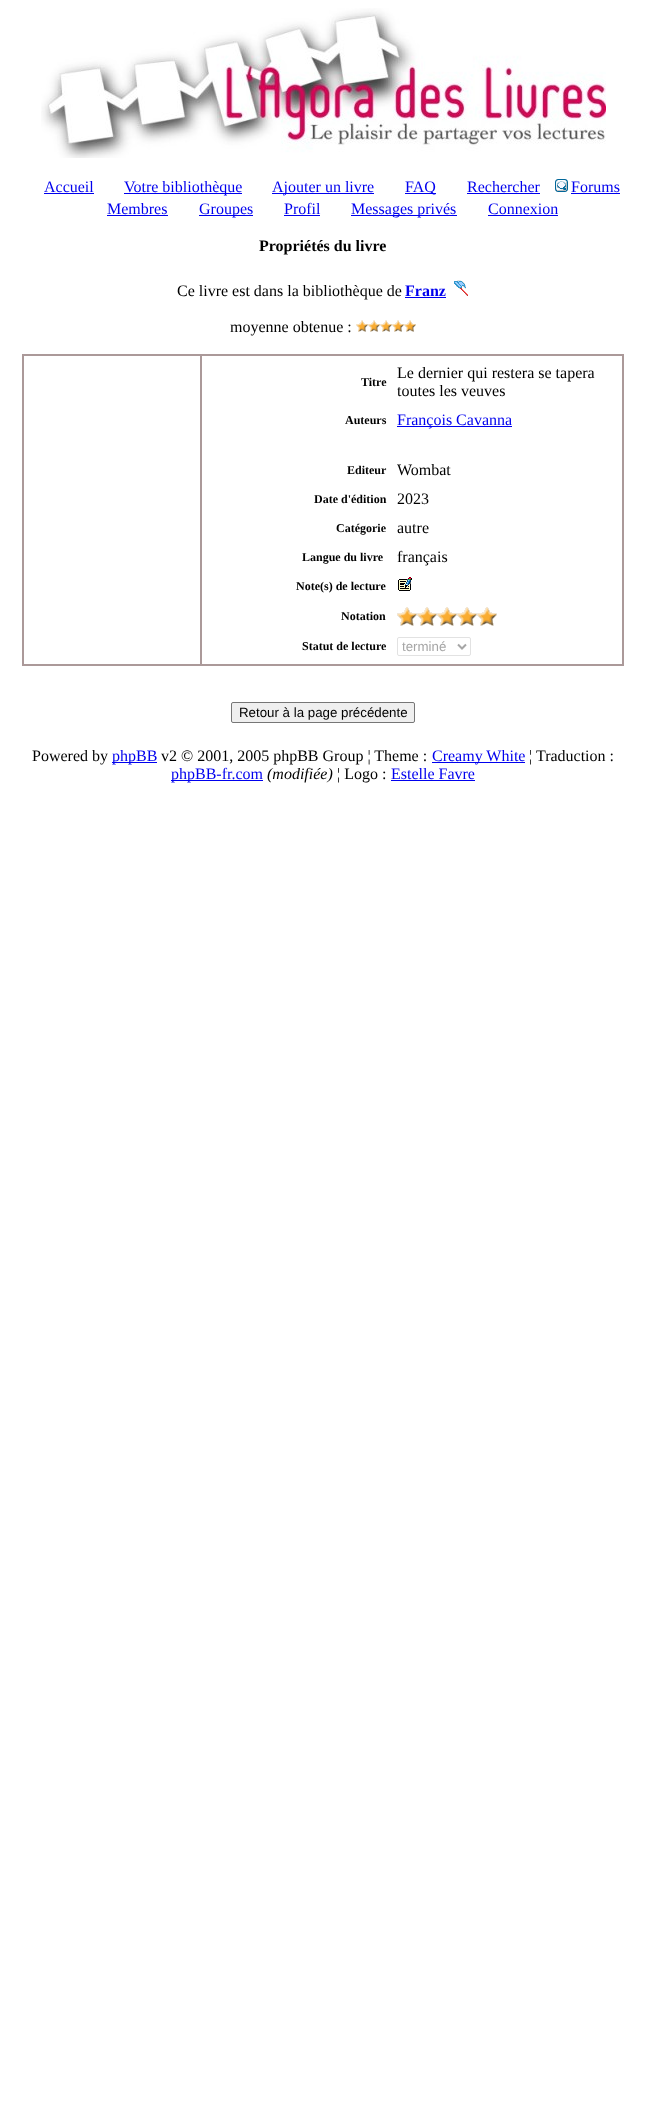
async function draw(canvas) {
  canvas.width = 646;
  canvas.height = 2112;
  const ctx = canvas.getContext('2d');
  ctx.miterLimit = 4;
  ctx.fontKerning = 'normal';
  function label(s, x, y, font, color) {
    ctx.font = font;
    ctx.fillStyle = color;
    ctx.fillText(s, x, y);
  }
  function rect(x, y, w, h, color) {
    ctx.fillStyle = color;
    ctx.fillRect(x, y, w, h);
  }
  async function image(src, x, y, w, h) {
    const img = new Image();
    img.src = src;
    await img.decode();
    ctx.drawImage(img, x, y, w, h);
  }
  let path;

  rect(0, 0, 646, 2112, '#fff');
  await image('assets/img1.png', 41, 8, 565, 150);
  label('Accueil', 44, 192, '16px Liberation Serif', '#00e');
  rect(44, 193, 50, 1, '#00e');
  rect(124, 193, 118, 1, '#00e');
  label('Votre bibliothèque', 124, 192, '16px Liberation Serif', '#00e');
  rect(272, 193, 102, 1, '#00e');
  label('Ajouter un livre', 272, 192, '16px Liberation Serif', '#00e');
  rect(405, 193, 31, 1, '#00e');
  label('FAQ', 405, 192, '16px Liberation Serif', '#00e');
  label('Rechercher', 467, 192, '16px Liberation Serif', '#00e');
  rect(467, 193, 73, 1, '#00e');
  await image('assets/img2.png', 555, 179, 13, 13);
  label('Forums', 571, 192, '16px Liberation Serif', '#00e');
  rect(571, 193, 49, 1, '#00e');
  label('Membres', 107, 214, '16px Liberation Serif', '#00e');
  rect(107, 215, 61, 1, '#00e');
  rect(199, 215, 54, 1, '#00e');
  label('Groupes', 199, 214, '16px Liberation Serif', '#00e');
  label('Profil', 284, 214, '16px Liberation Serif', '#00e');
  rect(284, 215, 36, 1, '#00e');
  rect(351, 215, 106, 1, '#00e');
  label('Messages privés', 351, 214, '16px Liberation Serif', '#00e');
  label('Connexion', 488, 214, '16px Liberation Serif', '#00e');
  rect(488, 215, 70, 1, '#00e');
  label('Propriétés du livre', 259, 251, 'bold 16px Liberation Serif', '#000');
  label('Ce livre est dans la bibliothèque de', 177, 296, '16px Liberation Serif', '#000');
  label('Franz', 405, 296, 'bold 16px Liberation Serif', '#00e');
  rect(405, 297, 41, 1, '#00e');
  await image('assets/img3.png', 454, 280, 14, 16);
  label('moyenne obtenue :', 230, 332, '16px Liberation Serif', '#000');
  await image('assets/img4.png', 356, 320, 12, 12);
  await image('assets/img4.png', 368, 320, 12, 12);
  await image('assets/img4.png', 380, 320, 12, 12);
  await image('assets/img4.png', 392, 320, 12, 12);
  await image('assets/img4.png', 404, 320, 12, 12);
  ctx.strokeStyle = '#ab9999';
  ctx.strokeRect(22.5, 354.5, 601, 311);
  ctx.strokeRect(23.5, 355.5, 177, 309);
  ctx.strokeRect(201.5, 355.5, 421, 309);
  label('Titre', 361, 386, 'bold 12px Liberation Serif', '#000');
  label('Le dernier qui restera se tapera', 397, 378, '16px Liberation Serif', '#000');
  label('toutes les veuves', 397, 396, '16px Liberation Serif', '#000');
  label('Auteurs', 345, 424, 'bold 12px Liberation Serif', '#000');
  rect(397, 426, 115, 1, '#00e');
  label('François Cavanna', 397, 425, '16px Liberation Serif', '#00e');
  label('Editeur', 347, 474, 'bold 12px Liberation Serif', '#000');
  label('Wombat', 397, 475, '16px Liberation Serif', '#000');
  label('Date d\'édition', 314, 503, 'bold 12px Liberation Serif', '#000');
  label('2023', 397, 504, '16px Liberation Serif', '#000');
  label('Catégorie', 336, 532, 'bold 12px Liberation Serif', '#000');
  label('autre', 397, 533, '16px Liberation Serif', '#000');
  label('Langue du livre', 302, 561, 'bold 12px Liberation Serif', '#000');
  label('français', 397, 562, '16px Liberation Serif', '#000');
  label('Note(s) de lecture', 296, 590, 'bold 12px Liberation Serif', '#000');
  await image('assets/img5.png', 398, 577, 14, 14);
  label('Notation', 341, 620, 'bold 12px Liberation Serif', '#000');
  await image('assets/img6.png', 397, 607, 20, 19);
  await image('assets/img6.png', 417, 607, 20, 19);
  await image('assets/img6.png', 437, 607, 20, 19);
  await image('assets/img6.png', 457, 607, 20, 19);
  await image('assets/img6.png', 477, 607, 20, 19);
  label('Statut de lecture', 302, 650, 'bold 12px Liberation Serif', '#000');
  ctx.beginPath();
  ctx.roundRect(397.5, 637.5, 73, 18, 1.5);
  ctx.strokeStyle = '#e2e2e2';
  ctx.stroke();
  path = new Path2D('M458 644.5L462 648.5L466 644.5');
  ctx.strokeStyle = '#a6a6a6';
  ctx.lineWidth = 2;
  ctx.stroke(path);
  label('terminé', 402, 651, '13.3px Liberation Sans', '#a6a6a6');
  ctx.fillStyle = '#efefef';
  ctx.beginPath();
  ctx.roundRect(231.5, 702.5, 183, 20, 1.5);
  ctx.fill();
  ctx.strokeStyle = '#767676';
  ctx.lineWidth = 1;
  ctx.stroke();
  label('Retour à la page précédente', 239, 717, '13.3px Liberation Sans', '#000');
  label('Powered by', 32, 761, '16px Liberation Serif', '#000');
  rect(112, 762, 45, 1, '#00e');
  label('phpBB', 112, 761, '16px Liberation Serif', '#00e');
  label('v2 © 2001, 2005 phpBB Group ¦ Theme :', 161, 761, '16px Liberation Serif', '#000');
  rect(432, 762, 93, 1, '#00e');
  label('Creamy White', 432, 761, '16px Liberation Serif', '#00e');
  label('¦ Traduction :', 529, 761, '16px Liberation Serif', '#000');
  rect(171, 780, 92, 1, '#00e');
  label('phpBB-fr.com', 171, 779, '16px Liberation Serif', '#00e');
  label('(modifiée)', 267, 779, 'italic 16px Liberation Serif', '#000');
  label('¦ Logo :', 337, 779, '16px Liberation Serif', '#000');
  label('Estelle Favre', 391, 779, '16px Liberation Serif', '#00e');
  rect(391, 780, 84, 1, '#00e');
}

draw(document.querySelector('canvas'));
